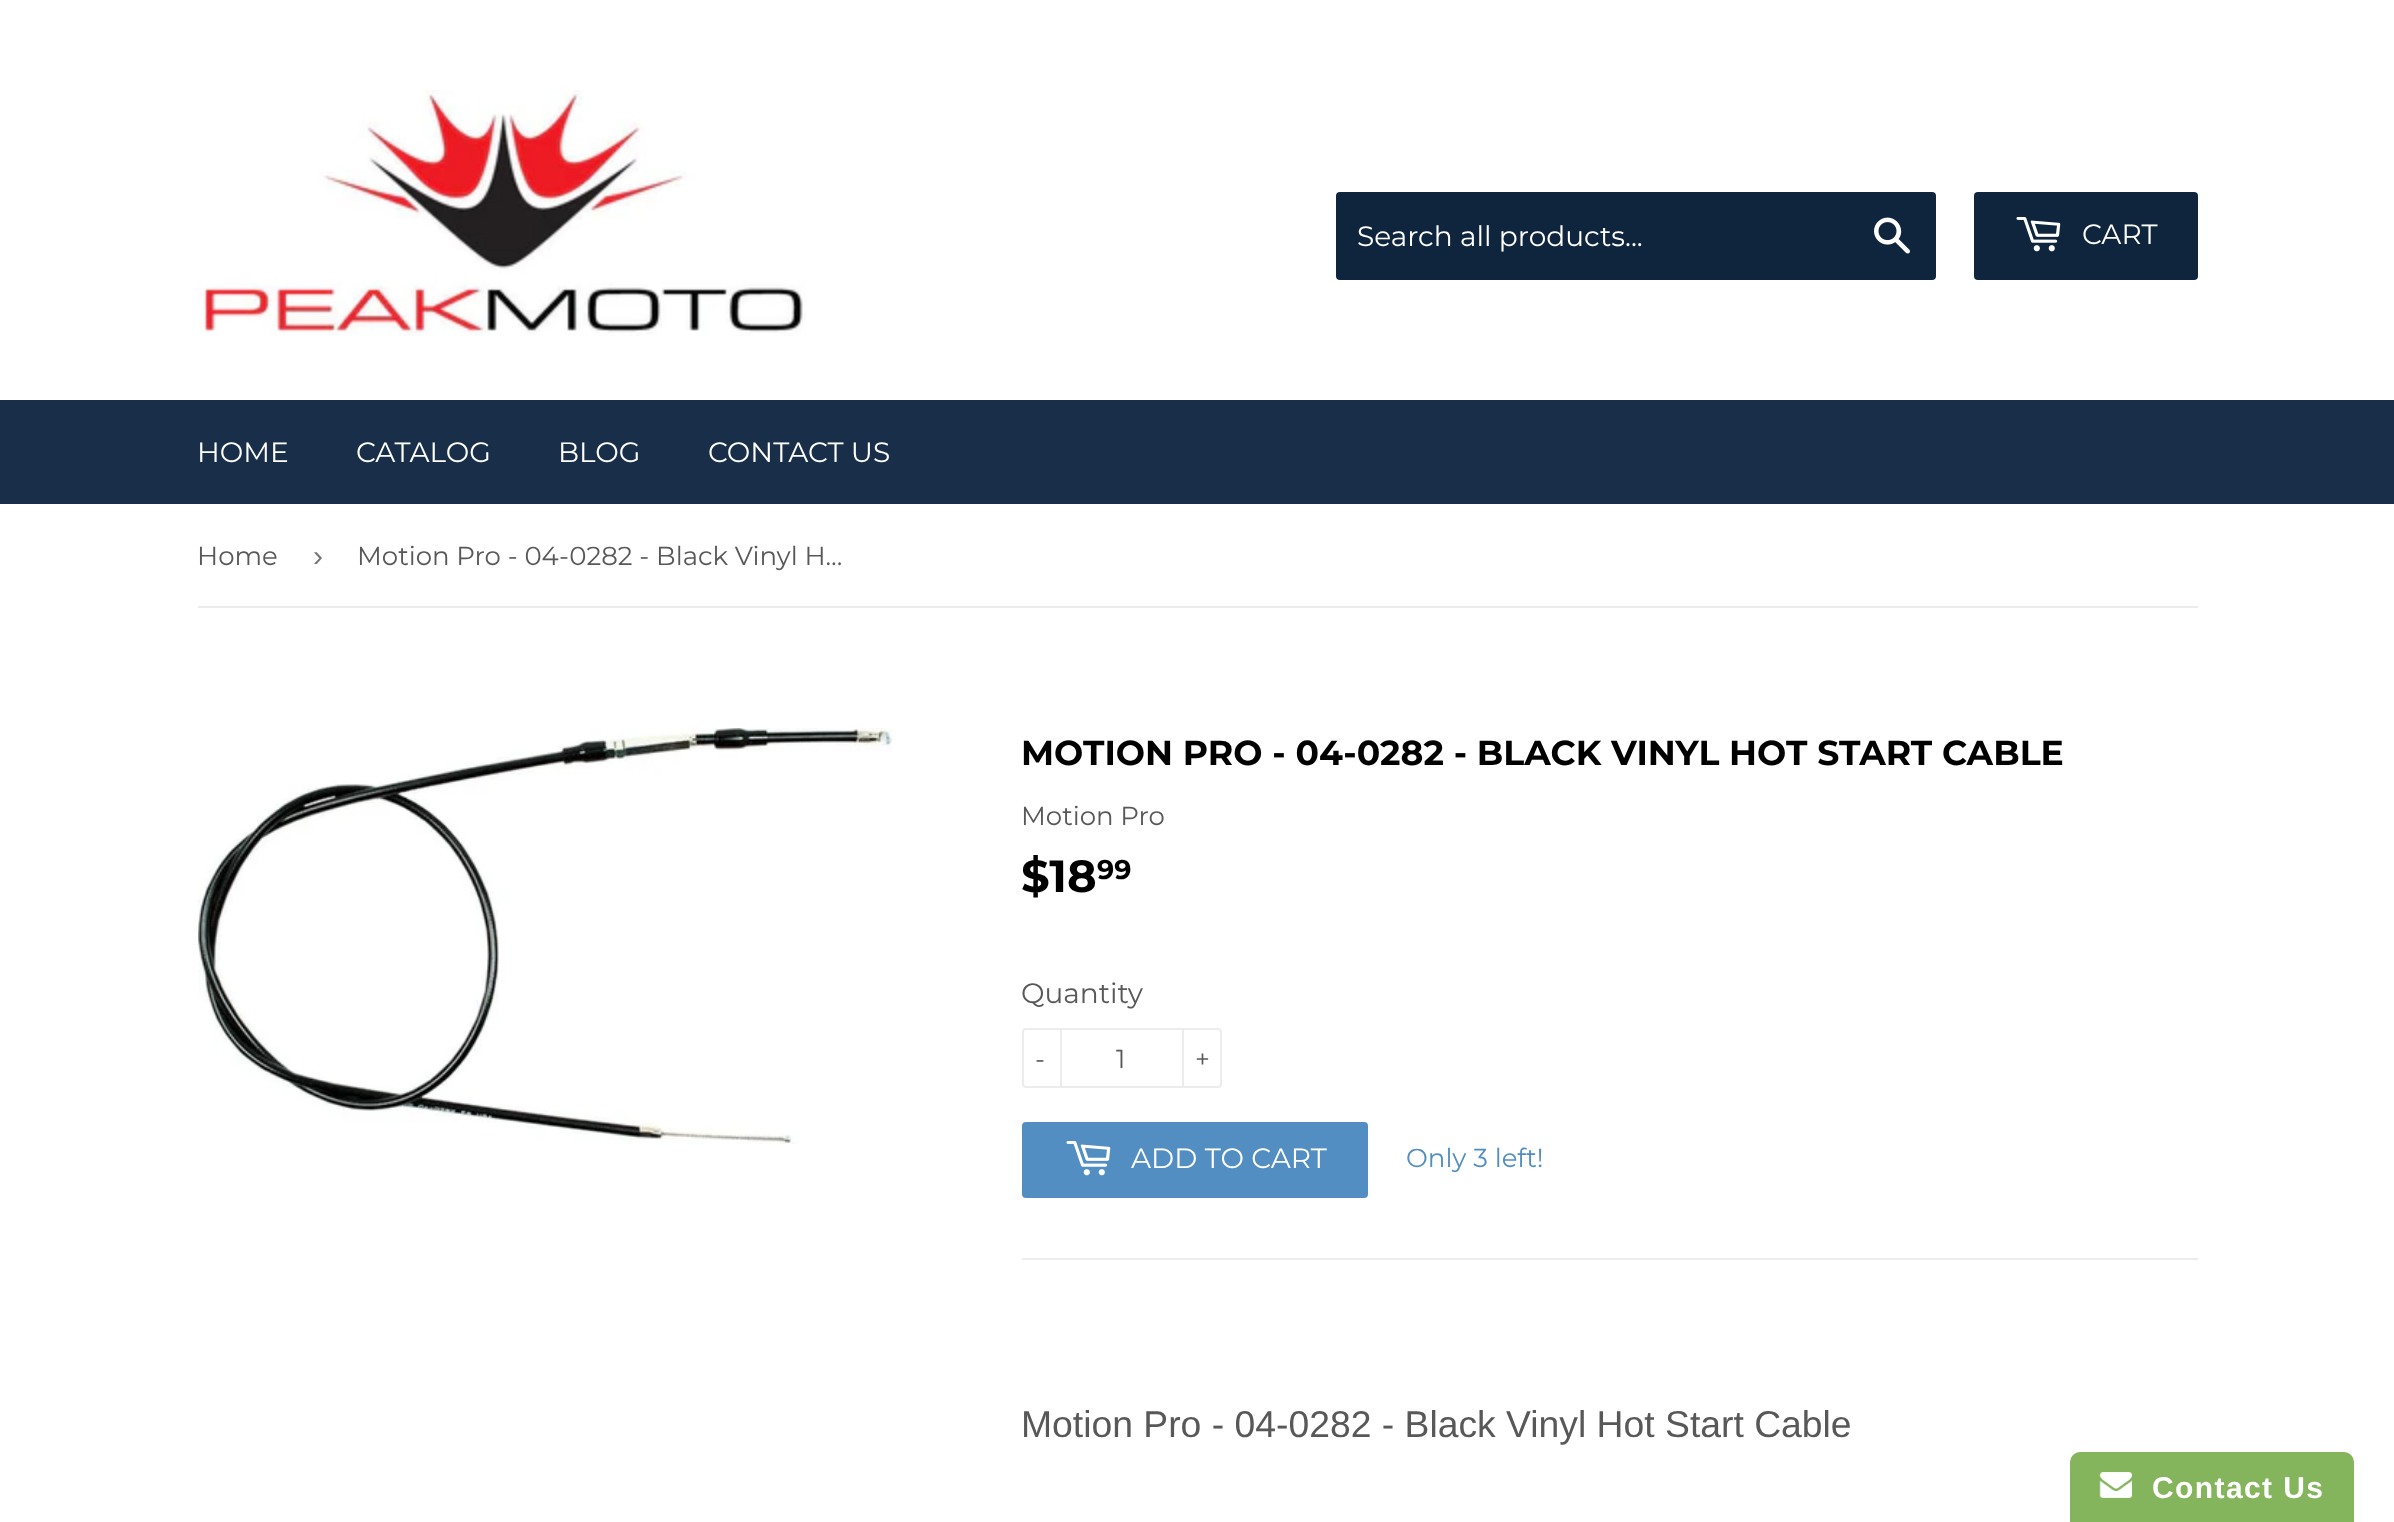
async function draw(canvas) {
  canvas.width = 2394;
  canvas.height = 1522;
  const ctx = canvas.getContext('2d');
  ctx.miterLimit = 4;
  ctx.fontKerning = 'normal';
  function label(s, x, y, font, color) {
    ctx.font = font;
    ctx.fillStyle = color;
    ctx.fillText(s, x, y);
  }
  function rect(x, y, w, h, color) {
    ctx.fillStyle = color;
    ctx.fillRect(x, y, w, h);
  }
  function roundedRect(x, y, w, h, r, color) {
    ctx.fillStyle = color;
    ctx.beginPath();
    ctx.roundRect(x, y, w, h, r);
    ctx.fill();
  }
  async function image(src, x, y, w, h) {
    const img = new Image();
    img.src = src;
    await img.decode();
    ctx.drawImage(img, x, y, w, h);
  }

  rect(0, 0, 2394, 1522, '#fff');
  await image('assets/img1.png', 198, 90, 608, 246);
  roundedRect(1336, 192, 600, 88, 4, '#0f243d');
  label('Search all products...', 1357, 246, '28px Montserrat', '#fff');
  await image('assets/img2.png', 1874, 217, 36, 37);
  roundedRect(1974, 192, 224, 88, 4, '#0f243d');
  await image('assets/img3.png', 2016, 217, 45, 35);
  label('CART', 2082, 244, '28px Montserrat', '#fff');
  rect(0, 400, 2394, 104, '#182e49');
  label('HOME', 197, 462, '28px Montserrat', '#fff');
  label('CATALOG', 356, 462, '28px Montserrat', '#fff');
  label('BLOG', 558, 462, '28px Montserrat', '#fff');
  label('CONTACT US', 708, 462, '28px Montserrat', '#fff');
  rect(198, 606, 2000, 2, '#ececec');
  label('Home', 197, 565, '26px Montserrat', '#585858');
  label('›', 313, 566, '30px Liberation Sans', '#767676');
  label('Motion Pro - 04-0282 - Black Vinyl H…', 357, 565, '26px Montserrat', '#585858');
  await image('assets/img4.png', 198, 728, 694, 416);
  label('MOTION PRO - 04-0282 - BLACK VINYL HOT START CABLE', 1021, 765, 'bold 34.65px Montserrat', '#000');
  label('Motion Pro', 1021, 825, '26px Montserrat', '#585858');
  label('$18', 1021, 892, 'bold 45px Montserrat', '#000');
  label('99', 1097, 879, 'bold 27px Montserrat', '#000');
  label('Quantity', 1021, 1003, '28px Montserrat', '#585858');
  ctx.beginPath();
  ctx.roundRect(1023, 1029, 198, 58, 3);
  ctx.strokeStyle = '#ececec';
  ctx.lineWidth = 2;
  ctx.stroke();
  rect(1060, 1028, 2, 60, '#ececec');
  label('-', 1035, 1068, '26px Montserrat', '#585858');
  label('1', 1116, 1068, '26px Montserrat', '#585858');
  rect(1182, 1028, 2, 60, '#ececec');
  label('+', 1195, 1068, '26px Montserrat', '#585858');
  roundedRect(1022, 1122, 346, 76, 4, '#528ec1');
  await image('assets/img5.png', 1066, 1141, 45, 35);
  label('ADD TO CART', 1131, 1168, '28px Montserrat', '#fff');
  label('Only 3 left!', 1406, 1167, '26px Montserrat', '#528ec1');
  rect(1022, 1258, 1176, 2, '#ececec');
  label('Motion Pro - 04-0282 - Black Vinyl Hot Start Cable', 1021, 1437, '37.3px Liberation Sans', '#585858');
  ctx.fillStyle = '#84b45b';
  ctx.beginPath();
  ctx.roundRect(2070, 1452, 284, 70, [10, 10, 0, 0]);
  ctx.fill();
  await image('assets/img6.png', 2099, 1472, 34, 26);
  ctx.letterSpacing = '1.4px';
  label('Contact Us', 2152, 1498, 'bold 30px Liberation Sans', '#fff');
}

draw(document.querySelector('canvas'));
